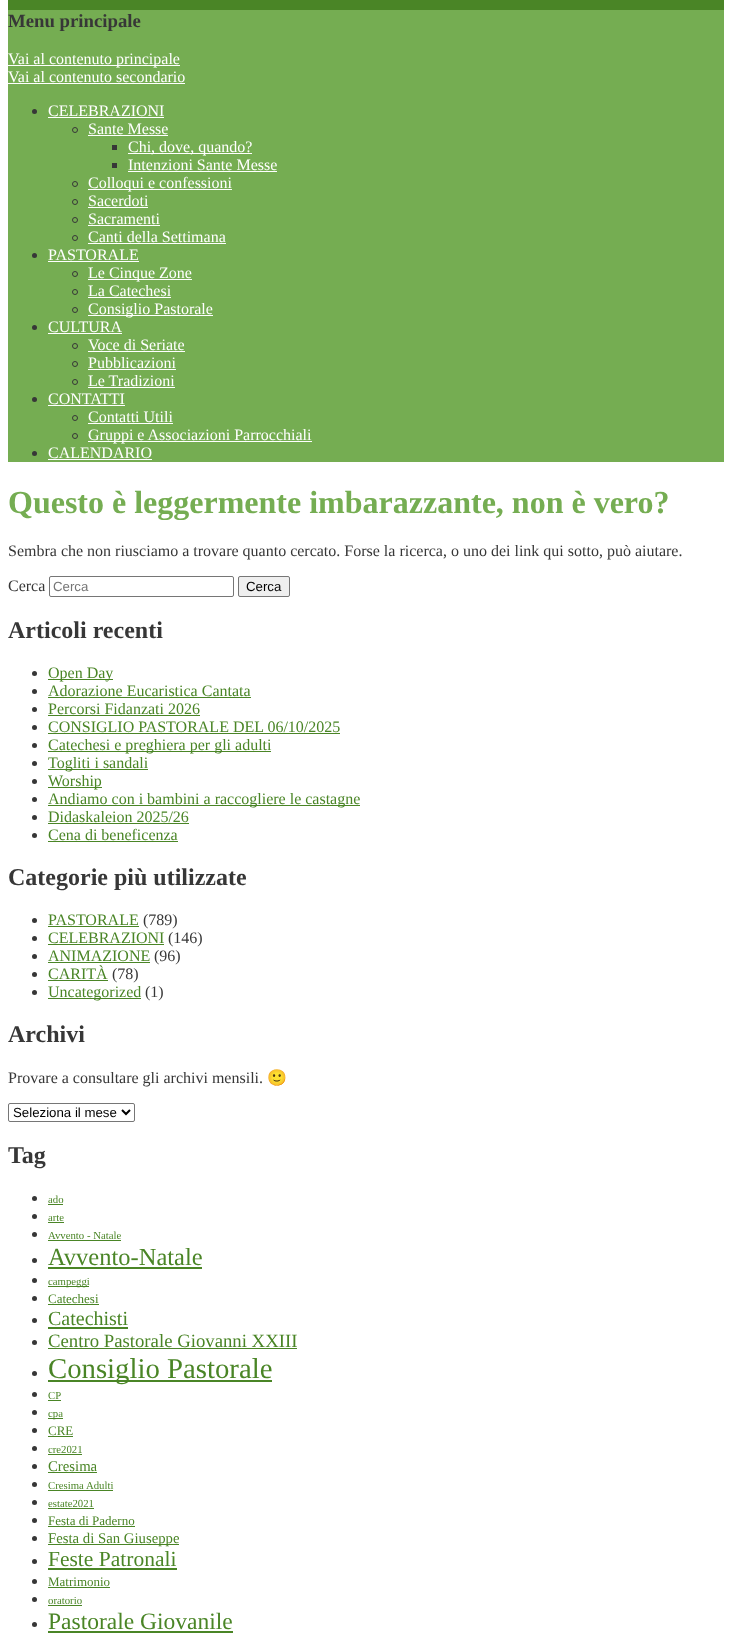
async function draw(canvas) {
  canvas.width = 732;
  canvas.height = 1639;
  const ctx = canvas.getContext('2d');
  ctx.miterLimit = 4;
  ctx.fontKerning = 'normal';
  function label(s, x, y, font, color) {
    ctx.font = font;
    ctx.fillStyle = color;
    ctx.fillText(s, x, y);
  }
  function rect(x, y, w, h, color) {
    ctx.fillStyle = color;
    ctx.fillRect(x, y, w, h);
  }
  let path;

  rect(0, 0, 732, 1639, '#fff');
  rect(8, 0, 716, 10, '#4a8526');
  rect(8, 10, 716, 452, '#75ad52');
  label('Menu principale', 8, 27, 'bold 18.75px Liberation Serif', '#373737');
  rect(8, 65, 172, 1, '#fff');
  label('Vai al contenuto principale', 8, 64, '16px Liberation Serif', '#fff');
  label('Vai al contenuto secondario', 8, 82, '16px Liberation Serif', '#fff');
  rect(8, 83, 177, 1, '#fff');
  ctx.fillStyle = '#373737';
  ctx.beginPath();
  ctx.arc(34.5, 111.5, 2.5, 0, 2 * Math.PI);
  ctx.fill();
  label('CELEBRAZIONI', 48, 116, '16px Liberation Serif', '#fff');
  rect(48, 117, 116, 1, '#fff');
  ctx.beginPath();
  ctx.arc(75, 130, 2.5, 0, 2 * Math.PI);
  ctx.strokeStyle = '#373737';
  ctx.stroke();
  label('Sante Messe', 88, 134, '16px Liberation Serif', '#fff');
  rect(88, 135, 80, 1, '#fff');
  rect(112, 145, 5, 5, '#373737');
  rect(128, 153, 124, 1, '#fff');
  label('Chi, dove, quando?', 128, 152, '16px Liberation Serif', '#fff');
  rect(112, 163, 5, 5, '#373737');
  label('Intenzioni Sante Messe', 128, 170, '16px Liberation Serif', '#fff');
  rect(128, 171, 149, 1, '#fff');
  ctx.beginPath();
  ctx.arc(75, 184, 2.5, 0, 2 * Math.PI);
  ctx.stroke();
  rect(88, 189, 144, 1, '#fff');
  label('Colloqui e confessioni', 88, 188, '16px Liberation Serif', '#fff');
  ctx.beginPath();
  ctx.arc(75, 202, 2.5, 0, 2 * Math.PI);
  ctx.stroke();
  label('Sacerdoti', 88, 206, '16px Liberation Serif', '#fff');
  rect(88, 207, 60, 1, '#fff');
  ctx.beginPath();
  ctx.arc(75, 220, 2.5, 0, 2 * Math.PI);
  ctx.stroke();
  label('Sacramenti', 88, 224, '16px Liberation Serif', '#fff');
  rect(88, 225, 72, 1, '#fff');
  ctx.beginPath();
  ctx.arc(75, 238, 2.5, 0, 2 * Math.PI);
  ctx.stroke();
  label('Canti della Settimana', 88, 242, '16px Liberation Serif', '#fff');
  rect(88, 243, 138, 1, '#fff');
  ctx.fillStyle = '#373737';
  ctx.beginPath();
  ctx.arc(34.5, 255.5, 2.5, 0, 2 * Math.PI);
  ctx.fill();
  label('PASTORALE', 48, 260, '16px Liberation Serif', '#fff');
  rect(48, 261, 91, 1, '#fff');
  ctx.beginPath();
  ctx.arc(75, 274, 2.5, 0, 2 * Math.PI);
  ctx.stroke();
  rect(88, 279, 104, 1, '#fff');
  label('Le Cinque Zone', 88, 278, '16px Liberation Serif', '#fff');
  ctx.beginPath();
  ctx.arc(75, 292, 2.5, 0, 2 * Math.PI);
  ctx.stroke();
  label('La Catechesi', 88, 296, '16px Liberation Serif', '#fff');
  rect(88, 297, 83, 1, '#fff');
  ctx.beginPath();
  ctx.arc(75, 310, 2.5, 0, 2 * Math.PI);
  ctx.stroke();
  rect(88, 315, 125, 1, '#fff');
  label('Consiglio Pastorale', 88, 314, '16px Liberation Serif', '#fff');
  ctx.fillStyle = '#373737';
  ctx.beginPath();
  ctx.arc(34.5, 327.5, 2.5, 0, 2 * Math.PI);
  ctx.fill();
  label('CULTURA', 48, 332, '16px Liberation Serif', '#fff');
  rect(48, 333, 74, 1, '#fff');
  ctx.beginPath();
  ctx.arc(75, 346, 2.5, 0, 2 * Math.PI);
  ctx.stroke();
  label('Voce di Seriate', 88, 350, '16px Liberation Serif', '#fff');
  rect(88, 351, 97, 1, '#fff');
  ctx.beginPath();
  ctx.arc(75, 364, 2.5, 0, 2 * Math.PI);
  ctx.stroke();
  label('Pubblicazioni', 88, 368, '16px Liberation Serif', '#fff');
  rect(88, 369, 88, 1, '#fff');
  ctx.beginPath();
  ctx.arc(75, 382, 2.5, 0, 2 * Math.PI);
  ctx.stroke();
  label('Le Tradizioni', 88, 386, '16px Liberation Serif', '#fff');
  rect(88, 387, 87, 1, '#fff');
  ctx.fillStyle = '#373737';
  ctx.beginPath();
  ctx.arc(34.5, 399.5, 2.5, 0, 2 * Math.PI);
  ctx.fill();
  label('CONTATTI', 48, 404, '16px Liberation Serif', '#fff');
  rect(48, 405, 77, 1, '#fff');
  ctx.beginPath();
  ctx.arc(75, 418, 2.5, 0, 2 * Math.PI);
  ctx.stroke();
  label('Contatti Utili', 88, 422, '16px Liberation Serif', '#fff');
  rect(88, 423, 85, 1, '#fff');
  ctx.beginPath();
  ctx.arc(75, 436, 2.5, 0, 2 * Math.PI);
  ctx.stroke();
  rect(88, 441, 224, 1, '#fff');
  label('Gruppi e Associazioni Parrocchiali', 88, 440, '16px Liberation Serif', '#fff');
  ctx.fillStyle = '#373737';
  ctx.beginPath();
  ctx.arc(34.5, 453.5, 2.5, 0, 2 * Math.PI);
  ctx.fill();
  label('CALENDARIO', 48, 458, '16px Liberation Serif', '#fff');
  rect(48, 459, 104, 1, '#fff');
  label('Questo è leggermente imbarazzante, non è vero?', 8, 513, 'bold 32px Liberation Serif', '#75ad52');
  label('Sembra che non riusciamo a trovare quanto cercato. Forse la ricerca, o uno dei link qui sotto, può aiutare.', 8, 556, '16px Liberation Serif', '#373737');
  label('Cerca', 8, 591, '16px Liberation Serif', '#373737');
  ctx.beginPath();
  ctx.roundRect(49.5, 576.5, 184, 20, 1.5);
  ctx.strokeStyle = '#767676';
  ctx.stroke();
  label('Cerca', 53, 591, '13.25px Liberation Sans', '#757575');
  ctx.fillStyle = '#efefef';
  ctx.beginPath();
  ctx.roundRect(238.5, 576.5, 51, 20, 1.5);
  ctx.fill();
  ctx.stroke();
  label('Cerca', 246, 591, '13.25px Liberation Sans', '#000');
  label('Articoli recenti', 8, 638, 'bold 24px Liberation Serif', '#373737');
  ctx.beginPath();
  ctx.arc(34.5, 673.5, 2.5, 0, 2 * Math.PI);
  ctx.fill();
  rect(48, 679, 65, 1, '#4a8526');
  label('Open Day', 48, 678, '16px Liberation Serif', '#4a8526');
  ctx.fillStyle = '#373737';
  ctx.beginPath();
  ctx.arc(34.5, 691.5, 2.5, 0, 2 * Math.PI);
  ctx.fill();
  label('Adorazione Eucaristica Cantata', 48, 696, '16px Liberation Serif', '#4a8526');
  rect(48, 697, 203, 1, '#4a8526');
  ctx.fillStyle = '#373737';
  ctx.beginPath();
  ctx.arc(34.5, 709.5, 2.5, 0, 2 * Math.PI);
  ctx.fill();
  label('Percorsi Fidanzati 2026', 48, 714, '16px Liberation Serif', '#4a8526');
  rect(48, 715, 152, 1, '#4a8526');
  ctx.fillStyle = '#373737';
  ctx.beginPath();
  ctx.arc(34.5, 727.5, 2.5, 0, 2 * Math.PI);
  ctx.fill();
  label('CONSIGLIO PASTORALE DEL 06/10/2025', 48, 732, '16px Liberation Serif', '#4a8526');
  rect(48, 733, 292, 1, '#4a8526');
  ctx.fillStyle = '#373737';
  ctx.beginPath();
  ctx.arc(34.5, 745.5, 2.5, 0, 2 * Math.PI);
  ctx.fill();
  rect(48, 751, 223, 1, '#4a8526');
  label('Catechesi e preghiera per gli adulti', 48, 750, '16px Liberation Serif', '#4a8526');
  ctx.fillStyle = '#373737';
  ctx.beginPath();
  ctx.arc(34.5, 763.5, 2.5, 0, 2 * Math.PI);
  ctx.fill();
  rect(48, 769, 100, 1, '#4a8526');
  label('Togliti i sandali', 48, 768, '16px Liberation Serif', '#4a8526');
  ctx.fillStyle = '#373737';
  ctx.beginPath();
  ctx.arc(34.5, 781.5, 2.5, 0, 2 * Math.PI);
  ctx.fill();
  rect(48, 787, 54, 1, '#4a8526');
  label('Worship', 48, 786, '16px Liberation Serif', '#4a8526');
  ctx.fillStyle = '#373737';
  ctx.beginPath();
  ctx.arc(34.5, 799.5, 2.5, 0, 2 * Math.PI);
  ctx.fill();
  rect(48, 805, 312, 1, '#4a8526');
  label('Andiamo con i bambini a raccogliere le castagne', 48, 804, '16px Liberation Serif', '#4a8526');
  ctx.fillStyle = '#373737';
  ctx.beginPath();
  ctx.arc(34.5, 817.5, 2.5, 0, 2 * Math.PI);
  ctx.fill();
  label('Didaskaleion 2025/26', 48, 822, '16px Liberation Serif', '#4a8526');
  rect(48, 823, 141, 1, '#4a8526');
  ctx.fillStyle = '#373737';
  ctx.beginPath();
  ctx.arc(34.5, 835.5, 2.5, 0, 2 * Math.PI);
  ctx.fill();
  label('Cena di beneficenza', 48, 840, '16px Liberation Serif', '#4a8526');
  rect(48, 841, 130, 1, '#4a8526');
  label('Categorie più utilizzate', 8, 885, 'bold 24px Liberation Serif', '#373737');
  ctx.beginPath();
  ctx.arc(34.5, 920.5, 2.5, 0, 2 * Math.PI);
  ctx.fill();
  label('PASTORALE', 48, 925, '16px Liberation Serif', '#4a8526');
  rect(48, 926, 91, 1, '#4a8526');
  label('(789)', 143, 925, '16px Liberation Serif', '#373737');
  ctx.beginPath();
  ctx.arc(34.5, 938.5, 2.5, 0, 2 * Math.PI);
  ctx.fill();
  label('CELEBRAZIONI', 48, 943, '16px Liberation Serif', '#4a8526');
  rect(48, 944, 116, 1, '#4a8526');
  label('(146)', 168, 943, '16px Liberation Serif', '#373737');
  ctx.beginPath();
  ctx.arc(34.5, 956.5, 2.5, 0, 2 * Math.PI);
  ctx.fill();
  label('ANIMAZIONE', 48, 961, '16px Liberation Serif', '#4a8526');
  rect(48, 962, 102, 1, '#4a8526');
  label('(96)', 154, 961, '16px Liberation Serif', '#373737');
  ctx.beginPath();
  ctx.arc(34.5, 974.5, 2.5, 0, 2 * Math.PI);
  ctx.fill();
  label('CARITÀ', 48, 979, '16px Liberation Serif', '#4a8526');
  rect(48, 980, 60, 1, '#4a8526');
  label('(78)', 112, 979, '16px Liberation Serif', '#373737');
  ctx.beginPath();
  ctx.arc(34.5, 992.5, 2.5, 0, 2 * Math.PI);
  ctx.fill();
  rect(48, 998, 93, 1, '#4a8526');
  label('Uncategorized', 48, 997, '16px Liberation Serif', '#4a8526');
  label('(1)', 145, 997, '16px Liberation Serif', '#373737');
  label('Archivi', 8, 1042, 'bold 24px Liberation Serif', '#373737');
  label('Provare a consultare gli archivi mensili.', 8, 1083, '16px Liberation Serif', '#373737');
  label('🙂', 267, 1083, '16px Noto Color Emoji', '#373737');
  ctx.beginPath();
  ctx.roundRect(8.5, 1103.5, 126, 18, 1.5);
  ctx.stroke();
  path = new Path2D('M122 1110L126 1114L130 1110');
  ctx.strokeStyle = '#000';
  ctx.lineWidth = 2;
  ctx.stroke(path);
  label('Seleziona il mese', 13, 1117, '13.25px Liberation Sans', '#000');
  label('Tag', 8, 1163, 'bold 24px Liberation Serif', '#373737');
  ctx.beginPath();
  ctx.arc(34.5, 1198.5, 2.5, 0, 2 * Math.PI);
  ctx.fill();
  label('ado', 48, 1203, '10.75px Liberation Serif', '#4a8526');
  rect(48, 1204, 15, 1, '#4a8526');
  ctx.fillStyle = '#373737';
  ctx.beginPath();
  ctx.arc(34.5, 1216.5, 2.5, 0, 2 * Math.PI);
  ctx.fill();
  label('arte', 48, 1221, '10.75px Liberation Serif', '#4a8526');
  rect(48, 1222, 16, 1, '#4a8526');
  ctx.fillStyle = '#373737';
  ctx.beginPath();
  ctx.arc(34.5, 1234.5, 2.5, 0, 2 * Math.PI);
  ctx.fill();
  label('Avvento - Natale', 48, 1239, '10.75px Liberation Serif', '#4a8526');
  rect(48, 1240, 73, 1, '#4a8526');
  ctx.fillStyle = '#373737';
  ctx.beginPath();
  ctx.arc(34.5, 1260.5, 2.5, 0, 2 * Math.PI);
  ctx.fill();
  label('Avvento-Natale', 48, 1265, '24.5px Liberation Serif', '#4a8526');
  rect(48, 1267, 154, 2, '#4a8526');
  ctx.fillStyle = '#373737';
  ctx.beginPath();
  ctx.arc(34.5, 1280.5, 2.5, 0, 2 * Math.PI);
  ctx.fill();
  rect(48, 1286, 41, 1, '#4a8526');
  label('campeggi', 48, 1285, '10.75px Liberation Serif', '#4a8526');
  ctx.fillStyle = '#373737';
  ctx.beginPath();
  ctx.arc(34.5, 1298.5, 2.5, 0, 2 * Math.PI);
  ctx.fill();
  label('Catechesi', 48, 1303, '13px Liberation Serif', '#4a8526');
  rect(48, 1304, 51, 1, '#4a8526');
  ctx.fillStyle = '#373737';
  ctx.beginPath();
  ctx.arc(34.5, 1320.5, 2.5, 0, 2 * Math.PI);
  ctx.fill();
  label('Catechisti', 48, 1325, '20px Liberation Serif', '#4a8526');
  rect(48, 1327, 80, 2, '#4a8526');
  ctx.fillStyle = '#373737';
  ctx.beginPath();
  ctx.arc(34.5, 1342.5, 2.5, 0, 2 * Math.PI);
  ctx.fill();
  label('Centro Pastorale Giovanni XXIII', 48, 1347, '18.75px Liberation Serif', '#4a8526');
  rect(48, 1348, 249, 1, '#4a8526');
  ctx.fillStyle = '#373737';
  ctx.beginPath();
  ctx.arc(34.5, 1373.5, 2.5, 0, 2 * Math.PI);
  ctx.fill();
  rect(48, 1380, 224, 2, '#4a8526');
  label('Consiglio Pastorale', 48, 1378, '28.75px Liberation Serif', '#4a8526');
  ctx.fillStyle = '#373737';
  ctx.beginPath();
  ctx.arc(34.5, 1394.5, 2.5, 0, 2 * Math.PI);
  ctx.fill();
  label('CP', 48, 1399, '10.75px Liberation Serif', '#4a8526');
  rect(48, 1400, 13, 1, '#4a8526');
  ctx.fillStyle = '#373737';
  ctx.beginPath();
  ctx.arc(34.5, 1412.5, 2.5, 0, 2 * Math.PI);
  ctx.fill();
  rect(48, 1418, 15, 1, '#4a8526');
  label('cpa', 48, 1417, '10.75px Liberation Serif', '#4a8526');
  ctx.fillStyle = '#373737';
  ctx.beginPath();
  ctx.arc(34.5, 1430.5, 2.5, 0, 2 * Math.PI);
  ctx.fill();
  label('CRE', 48, 1435, '13px Liberation Serif', '#4a8526');
  rect(48, 1436, 25, 1, '#4a8526');
  ctx.fillStyle = '#373737';
  ctx.beginPath();
  ctx.arc(34.5, 1448.5, 2.5, 0, 2 * Math.PI);
  ctx.fill();
  label('cre2021', 48, 1453, '10.75px Liberation Serif', '#4a8526');
  rect(48, 1454, 34, 1, '#4a8526');
  ctx.fillStyle = '#373737';
  ctx.beginPath();
  ctx.arc(34.5, 1466.5, 2.5, 0, 2 * Math.PI);
  ctx.fill();
  label('Cresima', 48, 1471, '14.75px Liberation Serif', '#4a8526');
  rect(48, 1472, 49, 1, '#4a8526');
  ctx.fillStyle = '#373737';
  ctx.beginPath();
  ctx.arc(34.5, 1484.5, 2.5, 0, 2 * Math.PI);
  ctx.fill();
  label('Cresima Adulti', 48, 1489, '10.75px Liberation Serif', '#4a8526');
  rect(48, 1490, 65, 1, '#4a8526');
  ctx.fillStyle = '#373737';
  ctx.beginPath();
  ctx.arc(34.5, 1502.5, 2.5, 0, 2 * Math.PI);
  ctx.fill();
  label('estate2021', 48, 1507, '10.75px Liberation Serif', '#4a8526');
  rect(48, 1508, 46, 1, '#4a8526');
  ctx.fillStyle = '#373737';
  ctx.beginPath();
  ctx.arc(34.5, 1520.5, 2.5, 0, 2 * Math.PI);
  ctx.fill();
  label('Festa di Paderno', 48, 1525, '13px Liberation Serif', '#4a8526');
  rect(48, 1526, 87, 1, '#4a8526');
  ctx.fillStyle = '#373737';
  ctx.beginPath();
  ctx.arc(34.5, 1538.5, 2.5, 0, 2 * Math.PI);
  ctx.fill();
  rect(48, 1544, 131, 1, '#4a8526');
  label('Festa di San Giuseppe', 48, 1543, '14.75px Liberation Serif', '#4a8526');
  ctx.fillStyle = '#373737';
  ctx.beginPath();
  ctx.arc(34.5, 1561.5, 2.5, 0, 2 * Math.PI);
  ctx.fill();
  label('Feste Patronali', 48, 1566, '21.5px Liberation Serif', '#4a8526');
  rect(48, 1568, 129, 2, '#4a8526');
  ctx.fillStyle = '#373737';
  ctx.beginPath();
  ctx.arc(34.5, 1581.5, 2.5, 0, 2 * Math.PI);
  ctx.fill();
  label('Matrimonio', 48, 1586, '13px Liberation Serif', '#4a8526');
  rect(48, 1587, 62, 1, '#4a8526');
  ctx.fillStyle = '#373737';
  ctx.beginPath();
  ctx.arc(34.5, 1599.5, 2.5, 0, 2 * Math.PI);
  ctx.fill();
  label('oratorio', 48, 1604, '10.75px Liberation Serif', '#4a8526');
  rect(48, 1605, 34, 1, '#4a8526');
  ctx.fillStyle = '#373737';
  ctx.beginPath();
  ctx.arc(34.5, 1624.5, 2.5, 0, 2 * Math.PI);
  ctx.fill();
  label('Pastorale Giovanile', 48, 1629, '23.5px Liberation Serif', '#4a8526');
  rect(48, 1631, 185, 2, '#4a8526');
}

draw(document.querySelector('canvas'));
